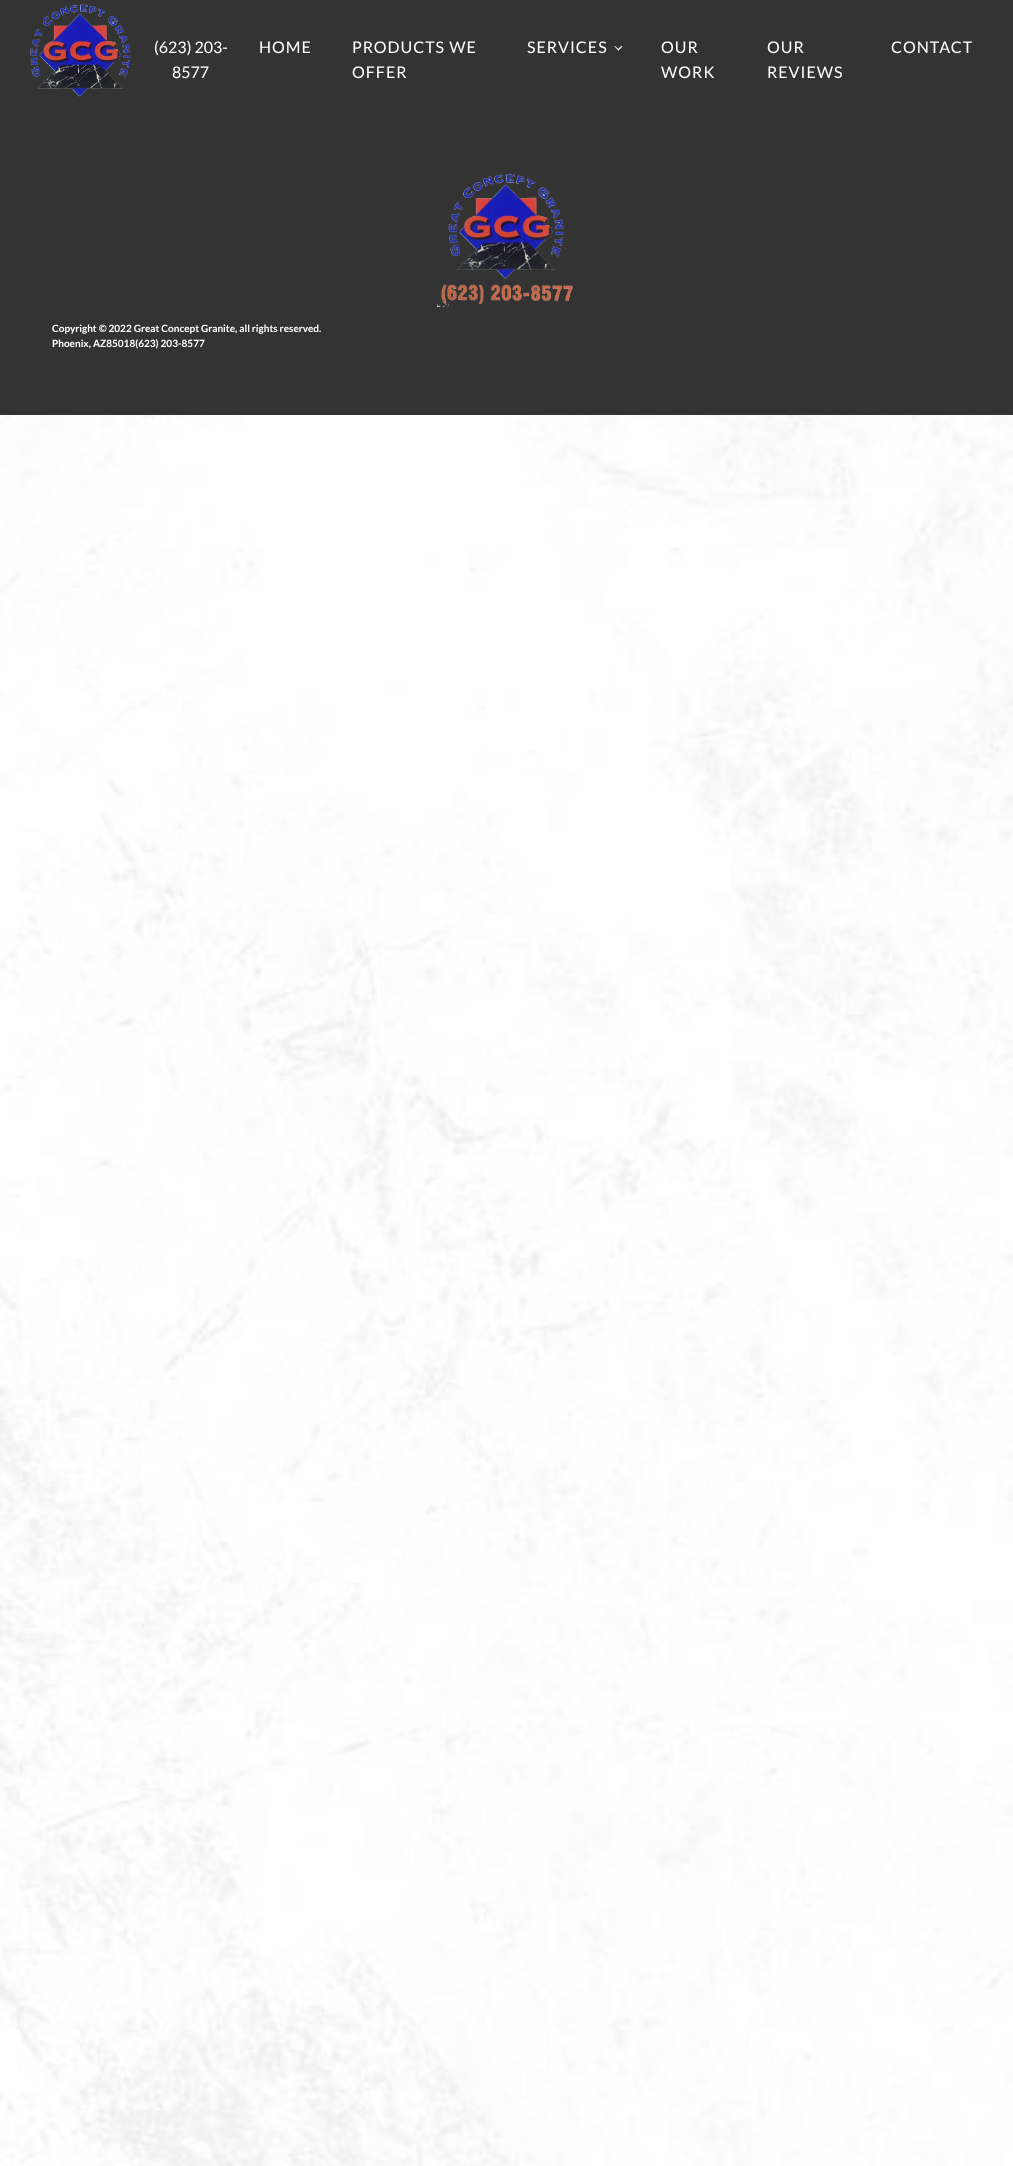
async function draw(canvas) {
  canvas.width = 1013;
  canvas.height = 2166;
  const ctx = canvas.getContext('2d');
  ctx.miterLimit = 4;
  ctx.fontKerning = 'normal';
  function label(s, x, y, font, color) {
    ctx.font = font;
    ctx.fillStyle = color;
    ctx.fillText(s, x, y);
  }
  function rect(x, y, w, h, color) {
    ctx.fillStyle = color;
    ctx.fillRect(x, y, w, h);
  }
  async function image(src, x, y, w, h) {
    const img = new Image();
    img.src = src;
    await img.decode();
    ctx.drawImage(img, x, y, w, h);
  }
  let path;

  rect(0, 0, 1013, 2166, '#fff');
  await image('assets/img1.png', 0, 415, 1013, 1751);
  rect(0, 0, 1013, 415, '#333');
  await image('assets/img2.png', 30, 4, 103, 93);
  label('(623) 203-', 154, 53, '16px Lato', '#fff');
  label('8577', 172, 78, '16px Lato', '#fff');
  ctx.letterSpacing = '1px';
  label('HOME', 259, 53, '16px Lato', '#fff');
  label('PRODUCTS WE', 352, 53, '16px Lato', '#fff');
  label('OFFER', 352, 78, '16px Lato', '#fff');
  label('SERVICES', 527, 53, '16px Lato', '#fff');
  path = new Path2D('M622.5 46.5L618.5 50.5L617.5 49.5L621.5 46Z');
  ctx.fill(path);
  path = new Path2D('M619 49.5L618.5 50.5L614.5 46.5L615 46Z');
  ctx.fill(path);
  label('OUR', 661, 53, '16px Lato', '#fff');
  label('WORK', 661, 78, '16px Lato', '#fff');
  label('OUR', 767, 53, '16px Lato', '#fff');
  label('REVIEWS', 767, 78, '16px Lato', '#fff');
  label('CONTACT', 891, 53, '16px Lato', '#fff');
  await image('assets/img3.png', 437, 174, 136, 133);
  ctx.letterSpacing = '0px';
  label('Copyright © 2022 Great Concept Granite, all rights reserved.', 52, 332, 'bold 10px Lato', '#fff');
  label('Phoenix, AZ85018(623) 203-8577', 52, 347, 'bold 10px Lato', '#fff');
}

draw(document.querySelector('canvas'));
